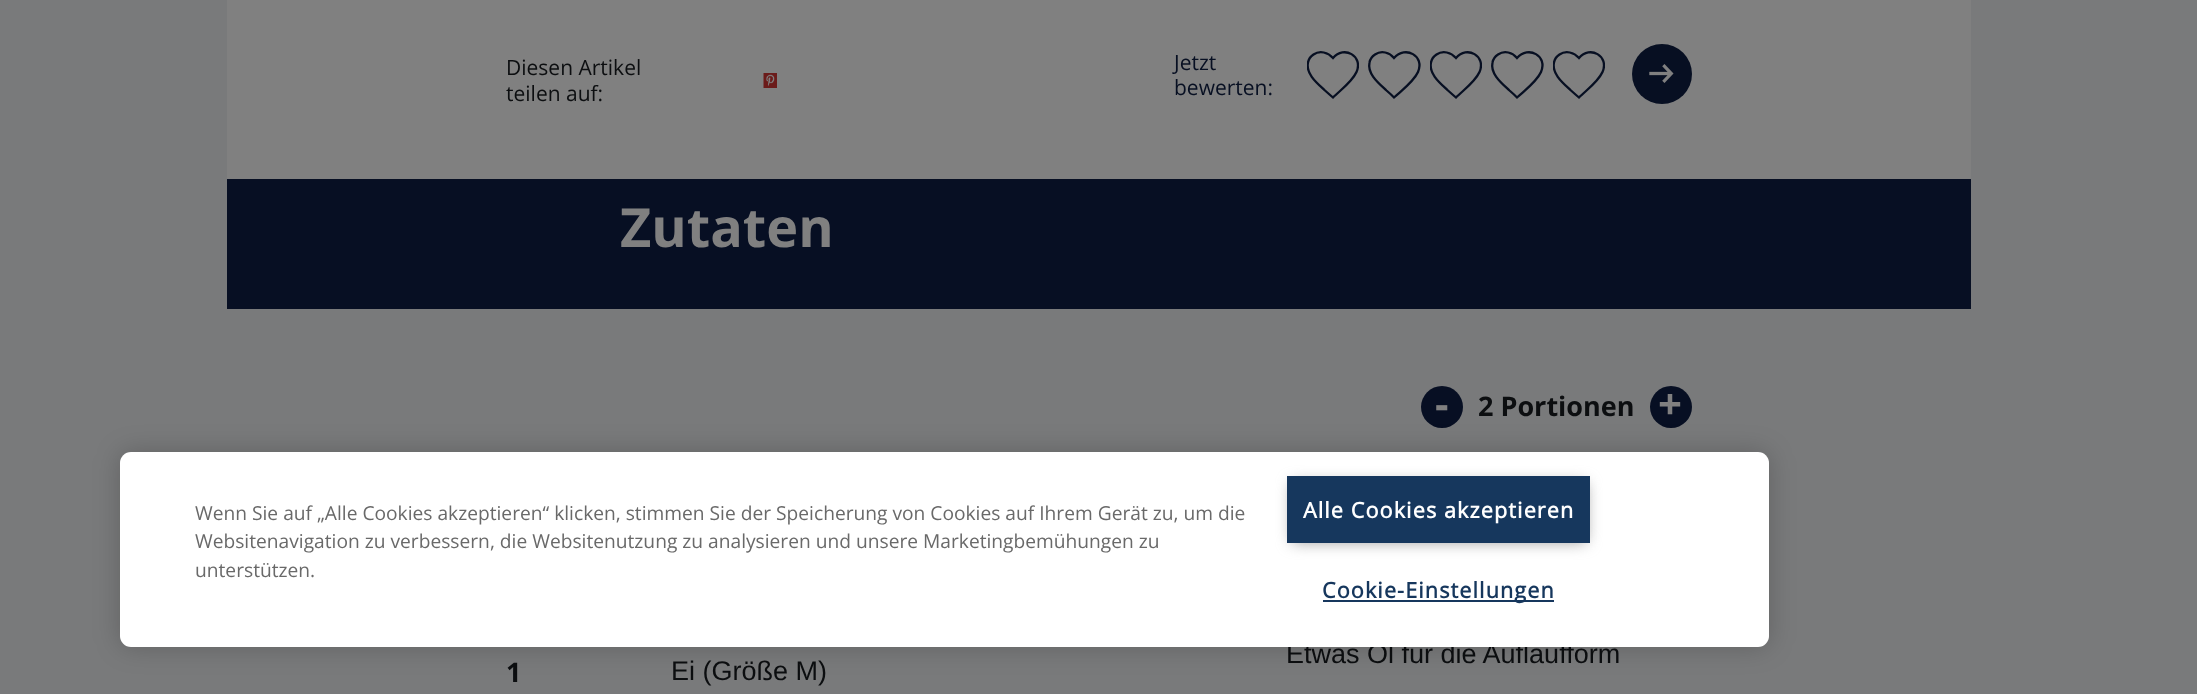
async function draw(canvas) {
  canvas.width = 2197;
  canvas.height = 694;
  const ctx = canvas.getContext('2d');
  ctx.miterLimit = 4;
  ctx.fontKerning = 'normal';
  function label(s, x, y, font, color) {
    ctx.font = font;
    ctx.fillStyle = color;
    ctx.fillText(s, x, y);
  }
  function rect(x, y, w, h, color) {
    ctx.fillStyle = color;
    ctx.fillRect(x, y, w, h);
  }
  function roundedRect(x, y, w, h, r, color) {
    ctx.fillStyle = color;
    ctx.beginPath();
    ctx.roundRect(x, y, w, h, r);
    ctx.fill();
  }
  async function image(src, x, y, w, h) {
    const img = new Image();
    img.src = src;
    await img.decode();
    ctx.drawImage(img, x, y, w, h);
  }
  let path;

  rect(0, 0, 2197, 694, '#797a7b');
  rect(227, 0, 1744, 179, '#808080');
  label('Diesen Artikel', 506, 75, '21px Open Sans', '#0c0e10');
  label('teilen auf:', 506, 101, '21px Open Sans', '#0c0e10');
  await image('assets/img1.png', 763, 73, 14, 15);
  label('Jetzt', 1174, 70, '21px Open Sans', '#070f22');
  label('bewerten:', 1174, 95, '21px Open Sans', '#070f22');
  ctx.save();
  ctx.beginPath();
  ctx.rect(1307, 44, 52, 63);
  ctx.clip();
  path = new Path2D('M1329.5 94.5L1325 90.5C1317.5 83.5 1305.5 74 1308 62.5C1308.5 59.5 1310.5 56.5 1313.5 54.5C1320 50 1328 52.5 1333 58C1344 45 1363.5 56 1356.5 72C1352 82 1340.5 90 1333 97.5Z');
  ctx.strokeStyle = '#070f22';
  ctx.lineWidth = 2.3;
  ctx.stroke(path);
  ctx.restore();
  path = new Path2D('M1391 94.5L1386.5 90.5C1379 83.5 1367 74 1369.5 62.5C1370 59.5 1372 56.5 1375 54.5C1381.5 50 1389.5 52.5 1394 58C1405.5 45 1425 56 1418 72C1413.5 82 1402 90 1394 97.5Z');
  ctx.strokeStyle = '#070f22';
  ctx.lineWidth = 2.3;
  ctx.stroke(path);
  ctx.save();
  ctx.beginPath();
  ctx.rect(1430, 44, 52, 63);
  ctx.clip();
  path = new Path2D('M1452.5 94.5L1448 90.5C1440.5 83.5 1428.5 74 1431 62.5C1431.5 59.5 1433.5 56.5 1436.5 54.5C1443 50 1451 52.5 1456 58C1467 45 1486.5 56 1479.5 72C1475 82 1463.5 90 1456 97.5Z');
  ctx.stroke(path);
  ctx.restore();
  path = new Path2D('M1514 94.5L1509.5 90.5C1502 83.5 1490 74 1492.5 62.5C1493 59.5 1495 56.5 1498 54.5C1504.5 50 1512.5 52.5 1517 58C1528.5 45 1548 56 1541 72C1536.5 82 1525 90 1517 97.5Z');
  ctx.stroke(path);
  ctx.save();
  ctx.beginPath();
  ctx.rect(1553, 44, 52, 63);
  ctx.clip();
  path = new Path2D('M1575.5 94.5L1571 90.5C1563.5 83.5 1551.5 74 1554 62.5C1554.5 59.5 1556.5 56.5 1559.5 54.5C1566 50 1574 52.5 1579 58C1590 45 1609.5 56 1602.5 72C1598 82 1586.5 90 1579 97.5Z');
  ctx.stroke(path);
  ctx.restore();
  ctx.beginPath();
  ctx.arc(1662, 74, 30, 0, 2 * Math.PI);
  ctx.fill();
  await image('assets/img2.png', 1649, 64, 25, 19);
  rect(227, 179, 1744, 130, '#070f23');
  label('Zutaten', 620, 247, 'bold 54px Open Sans', '#808080');
  ctx.fillStyle = '#070f23';
  ctx.beginPath();
  ctx.arc(1442, 407, 21, 0, 2 * Math.PI);
  ctx.fill();
  label('-', 1435, 419, 'bold 42px Open Sans', '#808080');
  label('2 Portionen', 1478, 416, 'bold 27px Open Sans', '#0c0e10');
  ctx.fillStyle = '#070f23';
  ctx.beginPath();
  ctx.arc(1671, 407, 21, 0, 2 * Math.PI);
  ctx.fill();
  label('+', 1658, 419, 'bold 42px Open Sans', '#808080');
  label('Etwas Öl für die Auflaufform', 1286, 663, '27px Liberation Sans', '#0c0e10');
  label('1', 506, 682, 'bold 27px Open Sans', '#0c0e10');
  label('Ei (Größe M)', 671, 680, '27px Liberation Sans', '#0c0e10');
  ctx.fillStyle = '#00000033';
  ctx.filter = 'blur(13.5px)';
  ctx.beginPath();
  ctx.roundRect(120, 452, 1649, 195, 11);
  ctx.fill();
  ctx.filter = 'none';
  roundedRect(120, 452, 1649, 195, 11, '#fff');
  label('Wenn Sie auf „Alle Cookies akzeptieren“ klicken, stimmen Sie der Speicherung von Cookies auf Ihrem Gerät zu, um die', 195, 520, '19.2px Open Sans', '#696969');
  label('Websitenavigation zu verbessern, die Websitenutzung zu analysieren und unsere Marketingbemühungen zu', 195, 548, '19.2px Open Sans', '#696969');
  label('unterstützen.', 195, 577, '19.2px Open Sans', '#696969');
  ctx.fillStyle = '#999';
  ctx.filter = 'blur(7.5px)';
  ctx.beginPath();
  ctx.rect(1292, 483, 294, 59);
  ctx.fill();
  ctx.filter = 'none';
  rect(1287, 476, 303, 67, '#16375d');
  ctx.letterSpacing = '1.1px';
  label('Alle Cookies akzeptieren', 1303, 518, 'bold 21.6px "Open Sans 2"', '#fff');
  rect(1323, 600, 231, 2, '#16375d');
  label('Cookie-Einstellungen', 1322, 598, 'bold 21.6px "Open Sans 2"', '#16375d');
}

draw(document.querySelector('canvas'));
